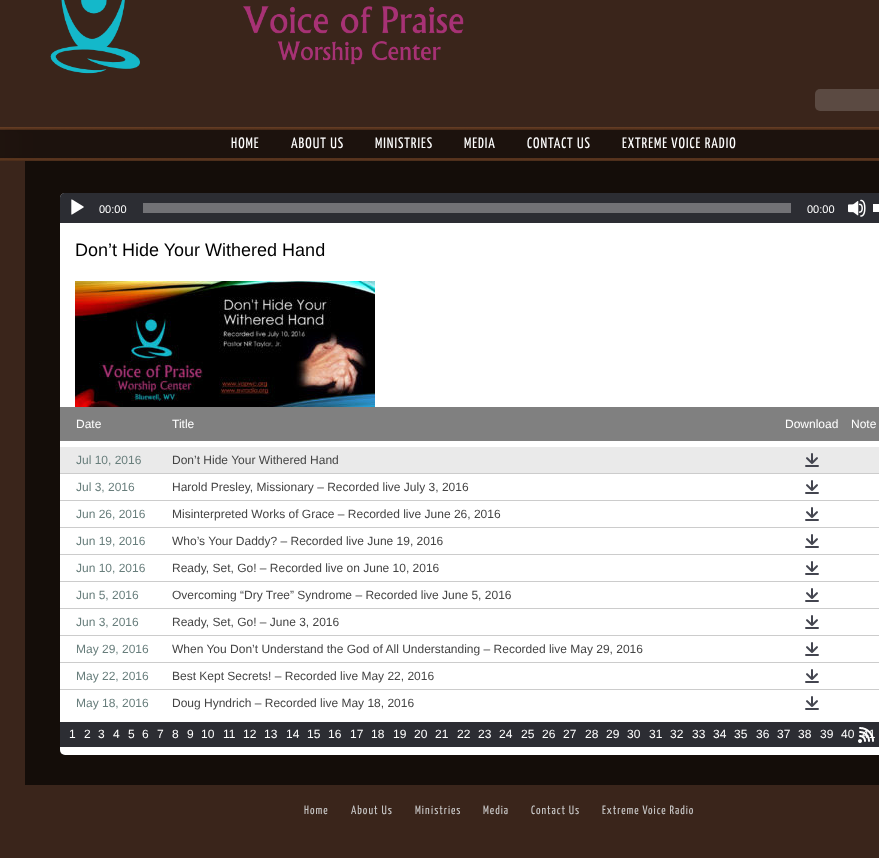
async function draw(canvas) {
  canvas.width = 879;
  canvas.height = 858;
  const ctx = canvas.getContext('2d');
  ctx.miterLimit = 4;
  ctx.fontKerning = 'normal';
  function label(s, x, y, font, color) {
    ctx.font = font;
    ctx.fillStyle = color;
    ctx.fillText(s, x, y);
  }
  function rect(x, y, w, h, color) {
    ctx.fillStyle = color;
    ctx.fillRect(x, y, w, h);
  }
  function roundedRect(x, y, w, h, r, color) {
    ctx.fillStyle = color;
    ctx.beginPath();
    ctx.roundRect(x, y, w, h, r);
    ctx.fill();
  }
  async function image(src, x, y, w, h) {
    const img = new Image();
    img.src = src;
    await img.decode();
    ctx.drawImage(img, x, y, w, h);
  }
  let path;

  rect(0, 0, 879, 858, '#3a251b');
  await image('assets/img1.png', 0, 127, 879, 34);
  await image('assets/img2.png', 50, 0, 414, 74);
  roundedRect(815, 89, 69, 22, 5, '#5b4a42');
  ctx.letterSpacing = '1px';
  label('HOME', 231, 148, '15px Yanone Kaffeesatz', '#fff');
  label('ABOUT US', 291, 148, '15px Yanone Kaffeesatz', '#fff');
  label('MINISTRIES', 375, 148, '15px Yanone Kaffeesatz', '#fff');
  label('MEDIA', 464, 148, '15px Yanone Kaffeesatz', '#fff');
  label('CONTACT US', 527, 148, '15px Yanone Kaffeesatz', '#fff');
  label('EXTREME VOICE RADIO', 622, 148, '15px Yanone Kaffeesatz', '#fff');
  rect(25, 161, 854, 624, '#140d09');
  roundedRect(60, 193, 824, 562, 5, '#fff');
  ctx.fillStyle = '#2c2d33';
  path = new Path2D('M65 193H879C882 193 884 195 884 198V223H60V198C60 195 62 193 65 193Z');
  ctx.fill(path);
  await image('assets/img3.png', 71, 199, 13, 16);
  ctx.letterSpacing = '0px';
  label('00:00', 99, 213, '11px Liberation Sans', '#fff');
  rect(143, 203, 648, 10, '#727276');
  label('00:00', 807, 213, '11px Liberation Sans', '#fff');
  await image('assets/img4.png', 848, 199, 18, 18);
  rect(873, 204, 6, 8, '#fff');
  label('Don’t Hide Your Withered Hand', 75, 256, '18px Liberation Sans', '#000');
  await image('assets/img5.png', 75, 281, 300, 126);
  rect(60, 407, 819, 34, '#808080');
  label('Date', 76, 428, '12px Liberation Sans', '#fff');
  label('Title', 172, 428, '12px Liberation Sans', '#fff');
  label('Download', 785, 428, '12px Liberation Sans', '#fff');
  label('Note', 851, 428, '12px Liberation Sans', '#fff');
  rect(60, 447, 819, 26, '#eaeaea');
  label('Jul 10, 2016', 76, 464, '12px Liberation Sans', '#687e7c');
  label('Don’t Hide Your Withered Hand', 172, 464, '12px Liberation Sans', '#444');
  await image('assets/img6.png', 805, 453, 14, 14);
  rect(60, 473, 819, 1, '#ccc');
  label('Jul 3, 2016', 76, 491, '12px Liberation Sans', '#687e7c');
  label('Harold Presley, Missionary – Recorded live July 3, 2016', 172, 491, '12px Liberation Sans', '#444');
  await image('assets/img7.png', 805, 480, 14, 14);
  rect(60, 500, 819, 1, '#ccc');
  label('Jun 26, 2016', 76, 518, '12px Liberation Sans', '#687e7c');
  label('Misinterpreted Works of Grace – Recorded live June 26, 2016', 172, 518, '12px Liberation Sans', '#444');
  await image('assets/img7.png', 805, 507, 14, 14);
  rect(60, 527, 819, 1, '#ccc');
  label('Jun 19, 2016', 76, 545, '12px Liberation Sans', '#687e7c');
  label('Who’s Your Daddy? – Recorded live June 19, 2016', 172, 545, '12px Liberation Sans', '#444');
  await image('assets/img7.png', 805, 534, 14, 14);
  rect(60, 554, 819, 1, '#ccc');
  label('Jun 10, 2016', 76, 572, '12px Liberation Sans', '#687e7c');
  label('Ready, Set, Go! – Recorded live on June 10, 2016', 172, 572, '12px Liberation Sans', '#444');
  await image('assets/img7.png', 805, 561, 14, 14);
  rect(60, 581, 819, 1, '#ccc');
  label('Jun 5, 2016', 76, 599, '12px Liberation Sans', '#687e7c');
  label('Overcoming “Dry Tree” Syndrome – Recorded live June 5, 2016', 172, 599, '12px Liberation Sans', '#444');
  await image('assets/img7.png', 805, 588, 14, 14);
  rect(60, 608, 819, 1, '#ccc');
  label('Jun 3, 2016', 76, 626, '12px Liberation Sans', '#687e7c');
  label('Ready, Set, Go! – June 3, 2016', 172, 626, '12px Liberation Sans', '#444');
  await image('assets/img7.png', 805, 615, 14, 14);
  rect(60, 635, 819, 1, '#ccc');
  label('May 29, 2016', 76, 653, '12px Liberation Sans', '#687e7c');
  label('When You Don’t Understand the God of All Understanding – Recorded live May 29, 2016', 172, 653, '12px Liberation Sans', '#444');
  await image('assets/img7.png', 805, 642, 14, 14);
  rect(60, 662, 819, 1, '#ccc');
  label('May 22, 2016', 76, 680, '12px Liberation Sans', '#687e7c');
  label('Best Kept Secrets! – Recorded live May 22, 2016', 172, 680, '12px Liberation Sans', '#444');
  await image('assets/img7.png', 805, 669, 14, 14);
  rect(60, 689, 819, 1, '#ccc');
  label('May 18, 2016', 76, 707, '12px Liberation Sans', '#687e7c');
  label('Doug Hyndrich – Recorded live May 18, 2016', 172, 707, '12px Liberation Sans', '#444');
  await image('assets/img7.png', 805, 696, 14, 14);
  rect(60, 722, 819, 25, '#2c2d33');
  label('1', 69, 738, '12px Liberation Sans', '#fff');
  label('2', 84, 738, '12px Liberation Sans', '#fff');
  label('3', 98, 738, '12px Liberation Sans', '#fff');
  label('4', 113, 738, '12px Liberation Sans', '#fff');
  label('5', 128, 738, '12px Liberation Sans', '#fff');
  label('6', 142, 738, '12px Liberation Sans', '#fff');
  label('7', 157, 738, '12px Liberation Sans', '#fff');
  label('8', 172, 738, '12px Liberation Sans', '#fff');
  label('9', 187, 738, '12px Liberation Sans', '#fff');
  label('10', 201, 738, '12px Liberation Sans', '#fff');
  label('11', 223, 738, '12px Liberation Sans', '#fff');
  label('12', 243, 738, '12px Liberation Sans', '#fff');
  label('13', 264, 738, '12px Liberation Sans', '#fff');
  label('14', 286, 738, '12px Liberation Sans', '#fff');
  label('15', 307, 738, '12px Liberation Sans', '#fff');
  label('16', 328, 738, '12px Liberation Sans', '#fff');
  label('17', 350, 738, '12px Liberation Sans', '#fff');
  label('18', 371, 738, '12px Liberation Sans', '#fff');
  label('19', 393, 738, '12px Liberation Sans', '#fff');
  label('20', 414, 738, '12px Liberation Sans', '#fff');
  label('21', 435, 738, '12px Liberation Sans', '#fff');
  label('22', 457, 738, '12px Liberation Sans', '#fff');
  label('23', 478, 738, '12px Liberation Sans', '#fff');
  label('24', 499, 738, '12px Liberation Sans', '#fff');
  label('25', 521, 738, '12px Liberation Sans', '#fff');
  label('26', 542, 738, '12px Liberation Sans', '#fff');
  label('27', 563, 738, '12px Liberation Sans', '#fff');
  label('28', 585, 738, '12px Liberation Sans', '#fff');
  label('29', 606, 738, '12px Liberation Sans', '#fff');
  label('30', 627, 738, '12px Liberation Sans', '#fff');
  label('31', 649, 738, '12px Liberation Sans', '#fff');
  label('32', 670, 738, '12px Liberation Sans', '#fff');
  label('33', 692, 738, '12px Liberation Sans', '#fff');
  label('34', 713, 738, '12px Liberation Sans', '#fff');
  label('35', 734, 738, '12px Liberation Sans', '#fff');
  label('36', 756, 738, '12px Liberation Sans', '#fff');
  label('37', 777, 738, '12px Liberation Sans', '#fff');
  label('38', 798, 738, '12px Liberation Sans', '#fff');
  label('39', 820, 738, '12px Liberation Sans', '#fff');
  label('40', 841, 738, '12px Liberation Sans', '#fff');
  label('41', 862, 738, '12px Liberation Sans', '#fff');
  await image('assets/img8.png', 858, 727, 16, 16);
  ctx.letterSpacing = '1px';
  label('Home', 304, 814, '12px Yanone Kaffeesatz', '#c8c7c7');
  label('About Us', 351, 814, '12px Yanone Kaffeesatz', '#c8c7c7');
  label('Ministries', 415, 814, '12px Yanone Kaffeesatz', '#c8c7c7');
  label('Media', 483, 814, '12px Yanone Kaffeesatz', '#c8c7c7');
  label('Contact Us', 531, 814, '12px Yanone Kaffeesatz', '#c8c7c7');
  label('Extreme Voice Radio', 602, 814, '12px Yanone Kaffeesatz', '#c8c7c7');
}

draw(document.querySelector('canvas'));
